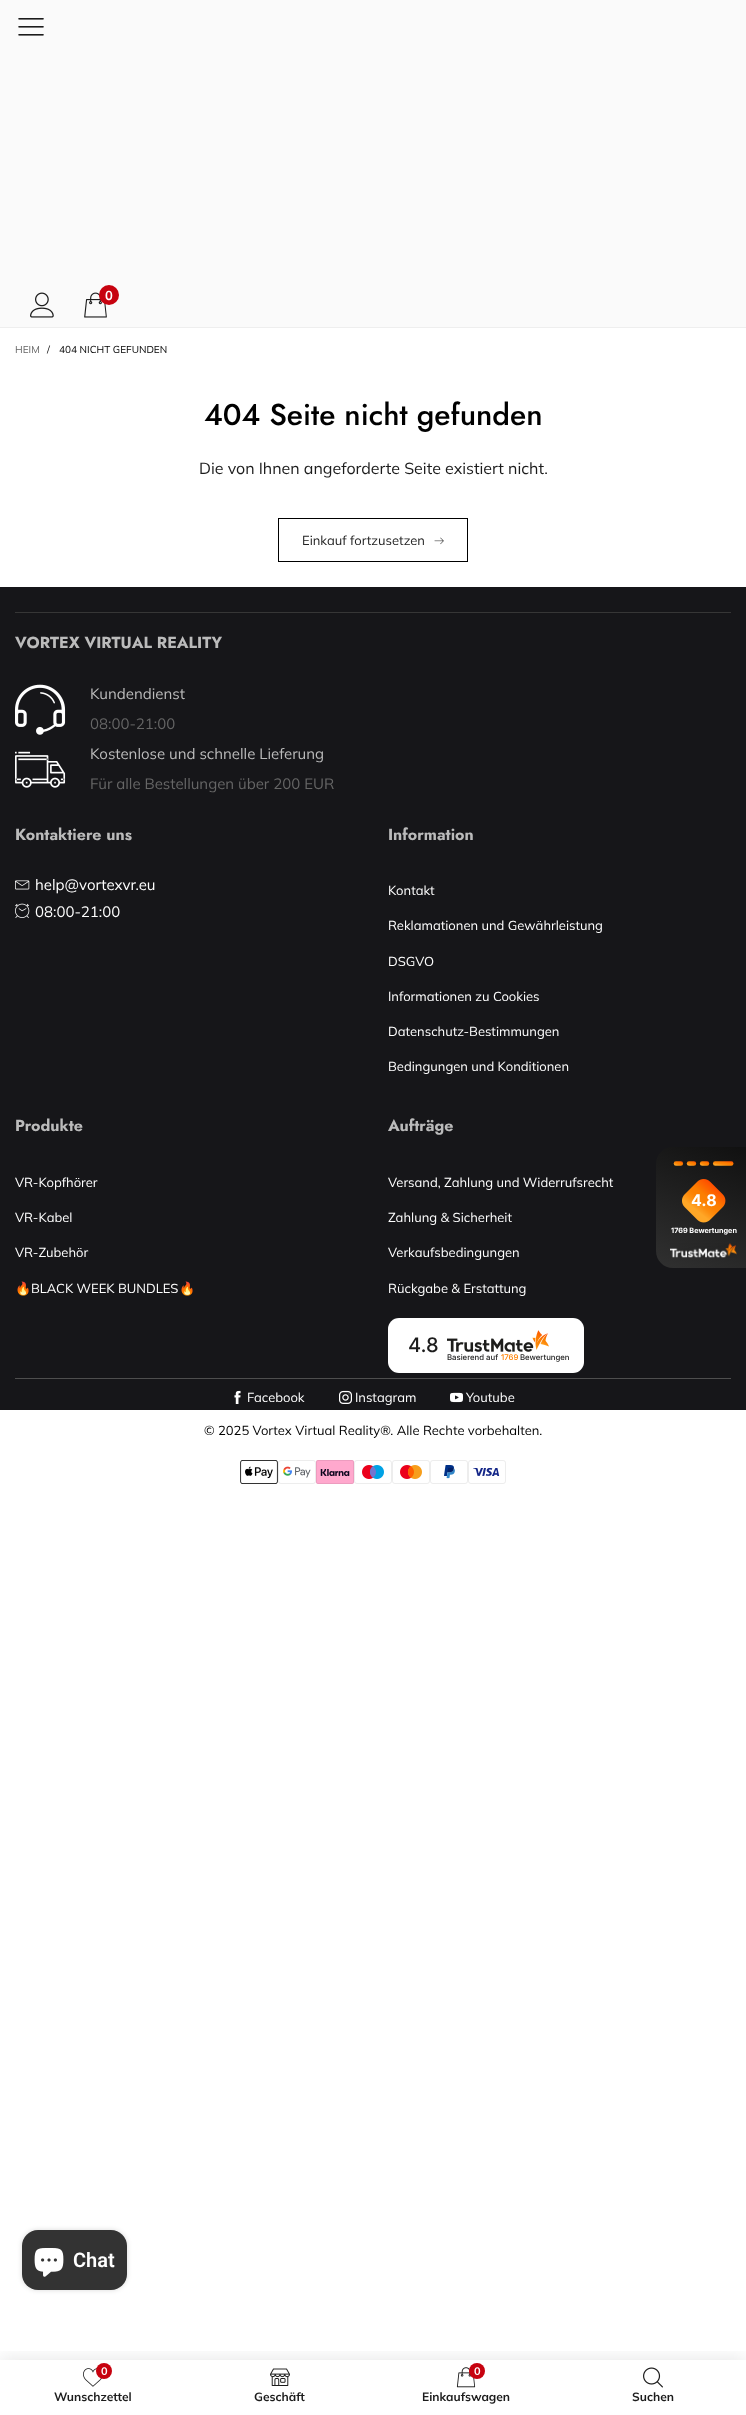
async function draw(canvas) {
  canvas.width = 746;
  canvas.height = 2415;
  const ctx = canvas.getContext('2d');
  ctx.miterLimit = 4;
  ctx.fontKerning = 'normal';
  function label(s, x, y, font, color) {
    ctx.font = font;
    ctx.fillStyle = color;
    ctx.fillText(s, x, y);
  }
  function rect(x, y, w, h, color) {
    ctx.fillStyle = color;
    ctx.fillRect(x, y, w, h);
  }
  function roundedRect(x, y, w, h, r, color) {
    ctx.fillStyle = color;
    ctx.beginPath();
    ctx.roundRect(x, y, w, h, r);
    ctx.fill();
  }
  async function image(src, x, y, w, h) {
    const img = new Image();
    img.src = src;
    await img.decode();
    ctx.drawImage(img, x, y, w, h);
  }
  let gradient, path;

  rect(0, 0, 746, 2415, '#fff');
  rect(0, 0, 746, 327, '#fafafa');
  rect(0, 327, 746, 1, '#eee');
  await image('assets/img1.png', 18, 18, 26, 18);
  await image('assets/img2.png', 30, 292, 24, 26);
  await image('assets/img3.png', 84, 292, 23, 26);
  ctx.fillStyle = '#c7020f';
  ctx.beginPath();
  ctx.arc(109, 295, 10, 0, 2 * Math.PI);
  ctx.fill();
  label('0', 105, 300, 'bold 13px Muli', '#fff');
  label('HEIM', 15, 353, '10px Muli', '#666');
  label('/', 47, 353, '10px Muli', '#000');
  label('404 NICHT GEFUNDEN', 59, 353, '10px Muli', '#000');
  label('404 Seite nicht gefunden', 204, 425, '500 30px Jost', '#000');
  label('Die von Ihnen angeforderte Seite existiert nicht.', 199, 474, '16px Muli', '#1c1c1c');
  ctx.strokeStyle = '#000';
  ctx.strokeRect(278.5, 518.5, 189, 43);
  label('Einkauf fortzusetzen', 302, 545, '13px Muli', '#222');
  await image('assets/img4.png', 434, 537, 10, 8);
  rect(0, 587, 746, 823, '#161619');
  rect(15, 612, 716, 1, '#363636');
  label('VORTEX VIRTUAL REALITY', 15, 648, 'bold 16px Jost', '#bbb');
  await image('assets/img5.png', 15, 684, 51, 51);
  label('Kundendienst', 90, 699, '15px Muli', '#bbb');
  label('08:00-21:00', 90, 729, '15px Muli', '#666');
  await image('assets/img6.png', 15, 751, 51, 37);
  label('Kostenlose und schnelle Lieferung', 90, 759, '15px Muli', '#bbb');
  label('Für alle Bestellungen über 200 EUR', 90, 789, '15px Muli', '#666');
  label('Kontaktiere uns', 15, 840, 'bold 16px Jost', '#bbb');
  await image('assets/img7.png', 15, 880, 15, 10);
  label('help@vortexvr.eu', 35, 890, '15px Muli', '#fff');
  await image('assets/img8.png', 15, 903, 15, 15);
  label('08:00-21:00', 35, 917, '15px Muli', '#fff');
  label('Information', 388, 840, 'bold 16px Jost', '#bbb');
  label('Kontakt', 388, 895, '13px Muli', '#fff');
  label('Reklamationen und Gewährleistung', 388, 930, '13px Muli', '#fff');
  label('DSGVO', 388, 966, '13px Muli', '#fff');
  label('Informationen zu Cookies', 388, 1001, '13px Muli', '#fff');
  label('Datenschutz-Bestimmungen', 388, 1036, '13px Muli', '#fff');
  label('Bedingungen und Konditionen', 388, 1071, '13px Muli', '#fff');
  label('Produkte', 15, 1131, 'bold 16px Jost', '#bbb');
  label('VR-Kopfhörer', 15, 1187, '13px Muli', '#fff');
  label('VR-Kabel', 15, 1222, '13px Muli', '#fff');
  label('VR-Zubehör', 15, 1257, '13px Muli', '#fff');
  label('🔥', 15, 1293, '13px Noto Color Emoji', '#fff');
  label('BLACK WEEK BUNDLES', 31, 1293, '13px Muli', '#fff');
  label('🔥', 179, 1293, '13px Noto Color Emoji', '#fff');
  label('Aufträge', 388, 1131, 'bold 16px Jost', '#bbb');
  label('Versand, Zahlung und Widerrufsrecht', 388, 1187, '13px Muli', '#fff');
  label('Zahlung & Sicherheit', 388, 1222, '13px Muli', '#fff');
  label('Verkaufsbedingungen', 388, 1257, '13px Muli', '#fff');
  label('Rückgabe & Erstattung', 388, 1293, '13px Muli', '#fff');
  roundedRect(388, 1318, 196, 55, 11, '#fff');
  label('4.8', 408, 1352, '500 20px Inter', '#1c1c1c');
  await image('assets/img9.png', 447, 1330, 102, 22);
  label('Basierend auf', 447, 1360, '500 7.75px Inter', '#1c1c1c');
  label('1769', 501, 1360, '500 7.75px Inter', '#ff8000');
  label('Bewertungen', 520, 1360, '500 7.75px Inter', '#1c1c1c');
  rect(15, 1378, 716, 1, '#4e4e4e');
  await image('assets/img10.png', 234, 1390, 7, 14);
  label('Facebook', 247, 1402, '13px Muli', '#fff');
  await image('assets/img11.png', 339, 1390, 13, 14);
  label('Instagram', 355, 1402, '13px Muli', '#fff');
  await image('assets/img12.png', 450, 1392, 13, 11);
  label('Youtube', 466, 1402, '13px Muli', '#fff');
  label('© 2025 Vortex Virtual Reality®. Alle Rechte vorbehalten.', 204, 1435, '13px Muli', '#000');
  await image('assets/img13.png', 240, 1460, 38, 24);
  await image('assets/img14.png', 278, 1460, 38, 24);
  await image('assets/img15.png', 316, 1460, 38, 24);
  await image('assets/img16.png', 354, 1460, 38, 24);
  await image('assets/img17.png', 392, 1460, 38, 24);
  await image('assets/img18.png', 430, 1460, 38, 24);
  await image('assets/img19.png', 468, 1460, 38, 24);
  gradient = ctx.createLinearGradient(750, 1307, 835, 1101);
  gradient.addColorStop(0.03, '#2f2f2f');
  gradient.addColorStop(1, '#000');
  ctx.fillStyle = gradient;
  path = new Path2D('M673 1147H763V1268H673C663.5 1268 656 1260.5 656 1251V1164C656 1154.5 663.5 1147 673 1147Z');
  ctx.fill(path);
  await image('assets/img20.png', 673, 1161, 61, 5);
  await image('assets/img21.png', 682, 1179, 44, 44);
  label('4.8', 691, 1206, 'bold 16px Inter', '#fff');
  label('1769 Bewertungen', 671, 1233, 'bold 7.25px Inter', '#fff');
  await image('assets/img22.png', 670, 1243, 67, 15);
  ctx.fillStyle = '#00000026';
  ctx.filter = 'blur(2.5px)';
  ctx.beginPath();
  ctx.roundRect(22, 2230, 105, 60, 16);
  ctx.fill();
  ctx.filter = 'none';
  roundedRect(22, 2230, 105, 60, 16, '#333');
  await image('assets/img23.png', 34, 2248, 30, 29);
  label('Chat', 73, 2267, '600 20px Roboto', '#fff');
  ctx.save();
  ctx.beginPath();
  ctx.rect(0, 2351, 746, 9);
  ctx.clip();
  ctx.fillStyle = '#0000001a';
  ctx.filter = 'blur(9.5px)';
  ctx.beginPath();
  ctx.rect(0, 2359, 746, 55);
  ctx.fill();
  ctx.filter = 'none';
  ctx.restore();
  await image('assets/img24.png', 83, 2368, 19, 19);
  ctx.fillStyle = '#c7020f';
  ctx.beginPath();
  ctx.arc(104, 2371, 8, 0, 2 * Math.PI);
  ctx.fill();
  ctx.letterSpacing = '-1px';
  label('0', 101, 2375, 'bold 11px Muli', '#fff');
  ctx.letterSpacing = '0px';
  label('Wunschzettel', 54, 2401, 'bold 12px Muli', '#1c1c1c');
  await image('assets/img25.png', 270, 2368, 20, 18);
  label('Geschäft', 254, 2401, 'bold 12px Muli', '#1c1c1c');
  await image('assets/img26.png', 456, 2367, 20, 21);
  ctx.fillStyle = '#c7020f';
  ctx.beginPath();
  ctx.arc(477, 2371, 8, 0, 2 * Math.PI);
  ctx.fill();
  ctx.letterSpacing = '-1px';
  label('0', 474, 2375, 'bold 11px Muli', '#fff');
  ctx.letterSpacing = '0px';
  label('Einkaufswagen', 422, 2401, 'bold 12px Muli', '#1c1c1c');
  await image('assets/img27.png', 643, 2367, 20, 21);
  label('Suchen', 632, 2401, 'bold 12px Muli', '#1c1c1c');
}

draw(document.querySelector('canvas'));
